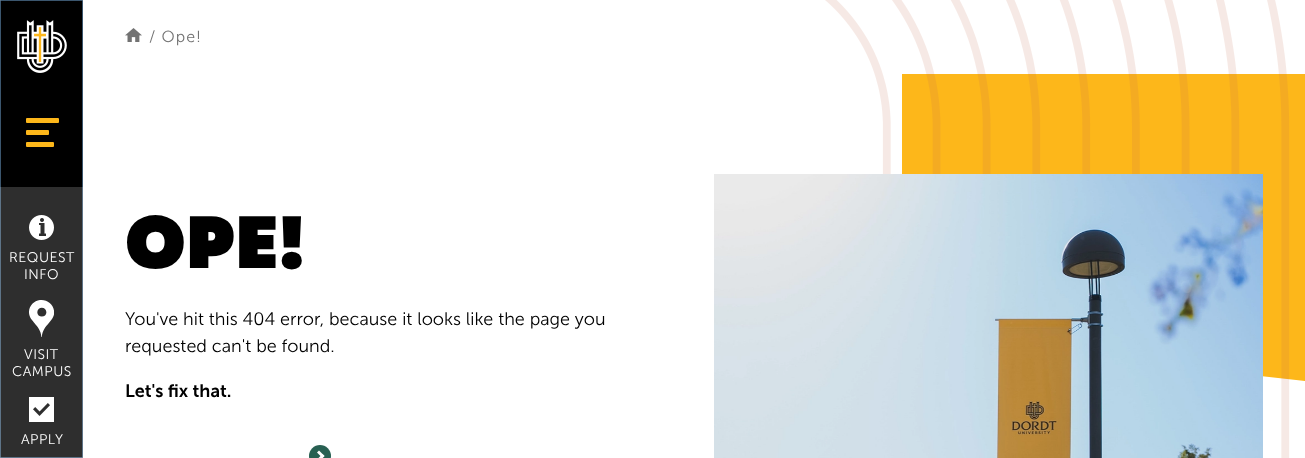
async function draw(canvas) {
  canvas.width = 1305;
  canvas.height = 458;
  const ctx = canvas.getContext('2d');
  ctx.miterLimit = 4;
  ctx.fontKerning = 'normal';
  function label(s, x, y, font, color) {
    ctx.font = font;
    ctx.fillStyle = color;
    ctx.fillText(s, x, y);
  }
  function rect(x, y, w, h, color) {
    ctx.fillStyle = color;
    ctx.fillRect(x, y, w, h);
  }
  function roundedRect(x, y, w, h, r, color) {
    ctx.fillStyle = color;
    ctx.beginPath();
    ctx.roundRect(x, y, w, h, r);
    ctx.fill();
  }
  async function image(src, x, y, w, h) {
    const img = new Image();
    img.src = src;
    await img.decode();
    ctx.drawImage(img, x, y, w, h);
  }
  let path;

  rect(0, 0, 1305, 458, '#fff');
  ctx.fillStyle = '#000';
  ctx.beginPath();
  ctx.rect(0.5, 0.5, 82, 457);
  ctx.fill();
  ctx.strokeStyle = '#3b566e';
  ctx.stroke();
  await image('assets/img1.png', 17, 20, 50, 53);
  roundedRect(26, 118, 33, 5, 1, '#fdb71a');
  roundedRect(26, 130, 23, 5, 1, '#fdb71a');
  roundedRect(26, 142, 28, 5, 1, '#fdb71a');
  rect(0, 187, 83, 271, '#ffffff2e');
  await image('assets/img2.png', 29, 215, 25, 25);
  ctx.letterSpacing = '0.5px';
  label('REQUEST', 9, 262, '300 14px "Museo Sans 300"', '#fff');
  label('INFO', 24, 279, '300 14px "Museo Sans 300"', '#fff');
  await image('assets/img3.png', 29, 300, 25, 37);
  label('VISIT', 24, 359, '300 14px "Museo Sans 300"', '#fff');
  label('CAMPUS', 12, 376, '300 14px "Museo Sans 300"', '#fff');
  await image('assets/img4.png', 29, 397, 25, 25);
  label('APPLY', 21, 444, '300 14px "Museo Sans 300"', '#fff');
  await image('assets/img5.png', 125, 28, 17, 14);
  ctx.letterSpacing = '1px';
  label('/ Ope!', 149, 42, '300 16px "Museo Sans 300"', '#727272');
  ctx.fillStyle = '#fdb71a';
  path = new Path2D('M902 74H1305V381L902 336Z');
  ctx.fill(path);
  await image('assets/img6.png', 825, 0, 465, 458);
  ctx.letterSpacing = '0px';
  label('OPE!', 125, 268, '900 72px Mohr', '#000');
  label('You\'ve hit this 404 error, because it looks like the page you', 125, 325, '300 18px "Museo Sans 300"', '#000');
  label('requested can\'t be found.', 125, 352, '300 18px "Museo Sans 300"', '#000');
  label('Let\'s fix that.', 125, 397, '600 18px "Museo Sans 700"', '#000');
  ctx.fillStyle = '#286052';
  ctx.beginPath();
  ctx.arc(320, 456, 11, 0, 2 * Math.PI);
  ctx.fill();
  ctx.fillStyle = '#fff';
  path = new Path2D('M319 450.5L324.5 456L322.5 458L317 452.5Z');
  ctx.fill(path);
  path = new Path2D('M322.5 454L324.5 456L319 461.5L317 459.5Z');
  ctx.fill(path);
  await image('assets/img7.png', 714, 174, 549, 284);
}

draw(document.querySelector('canvas'));
